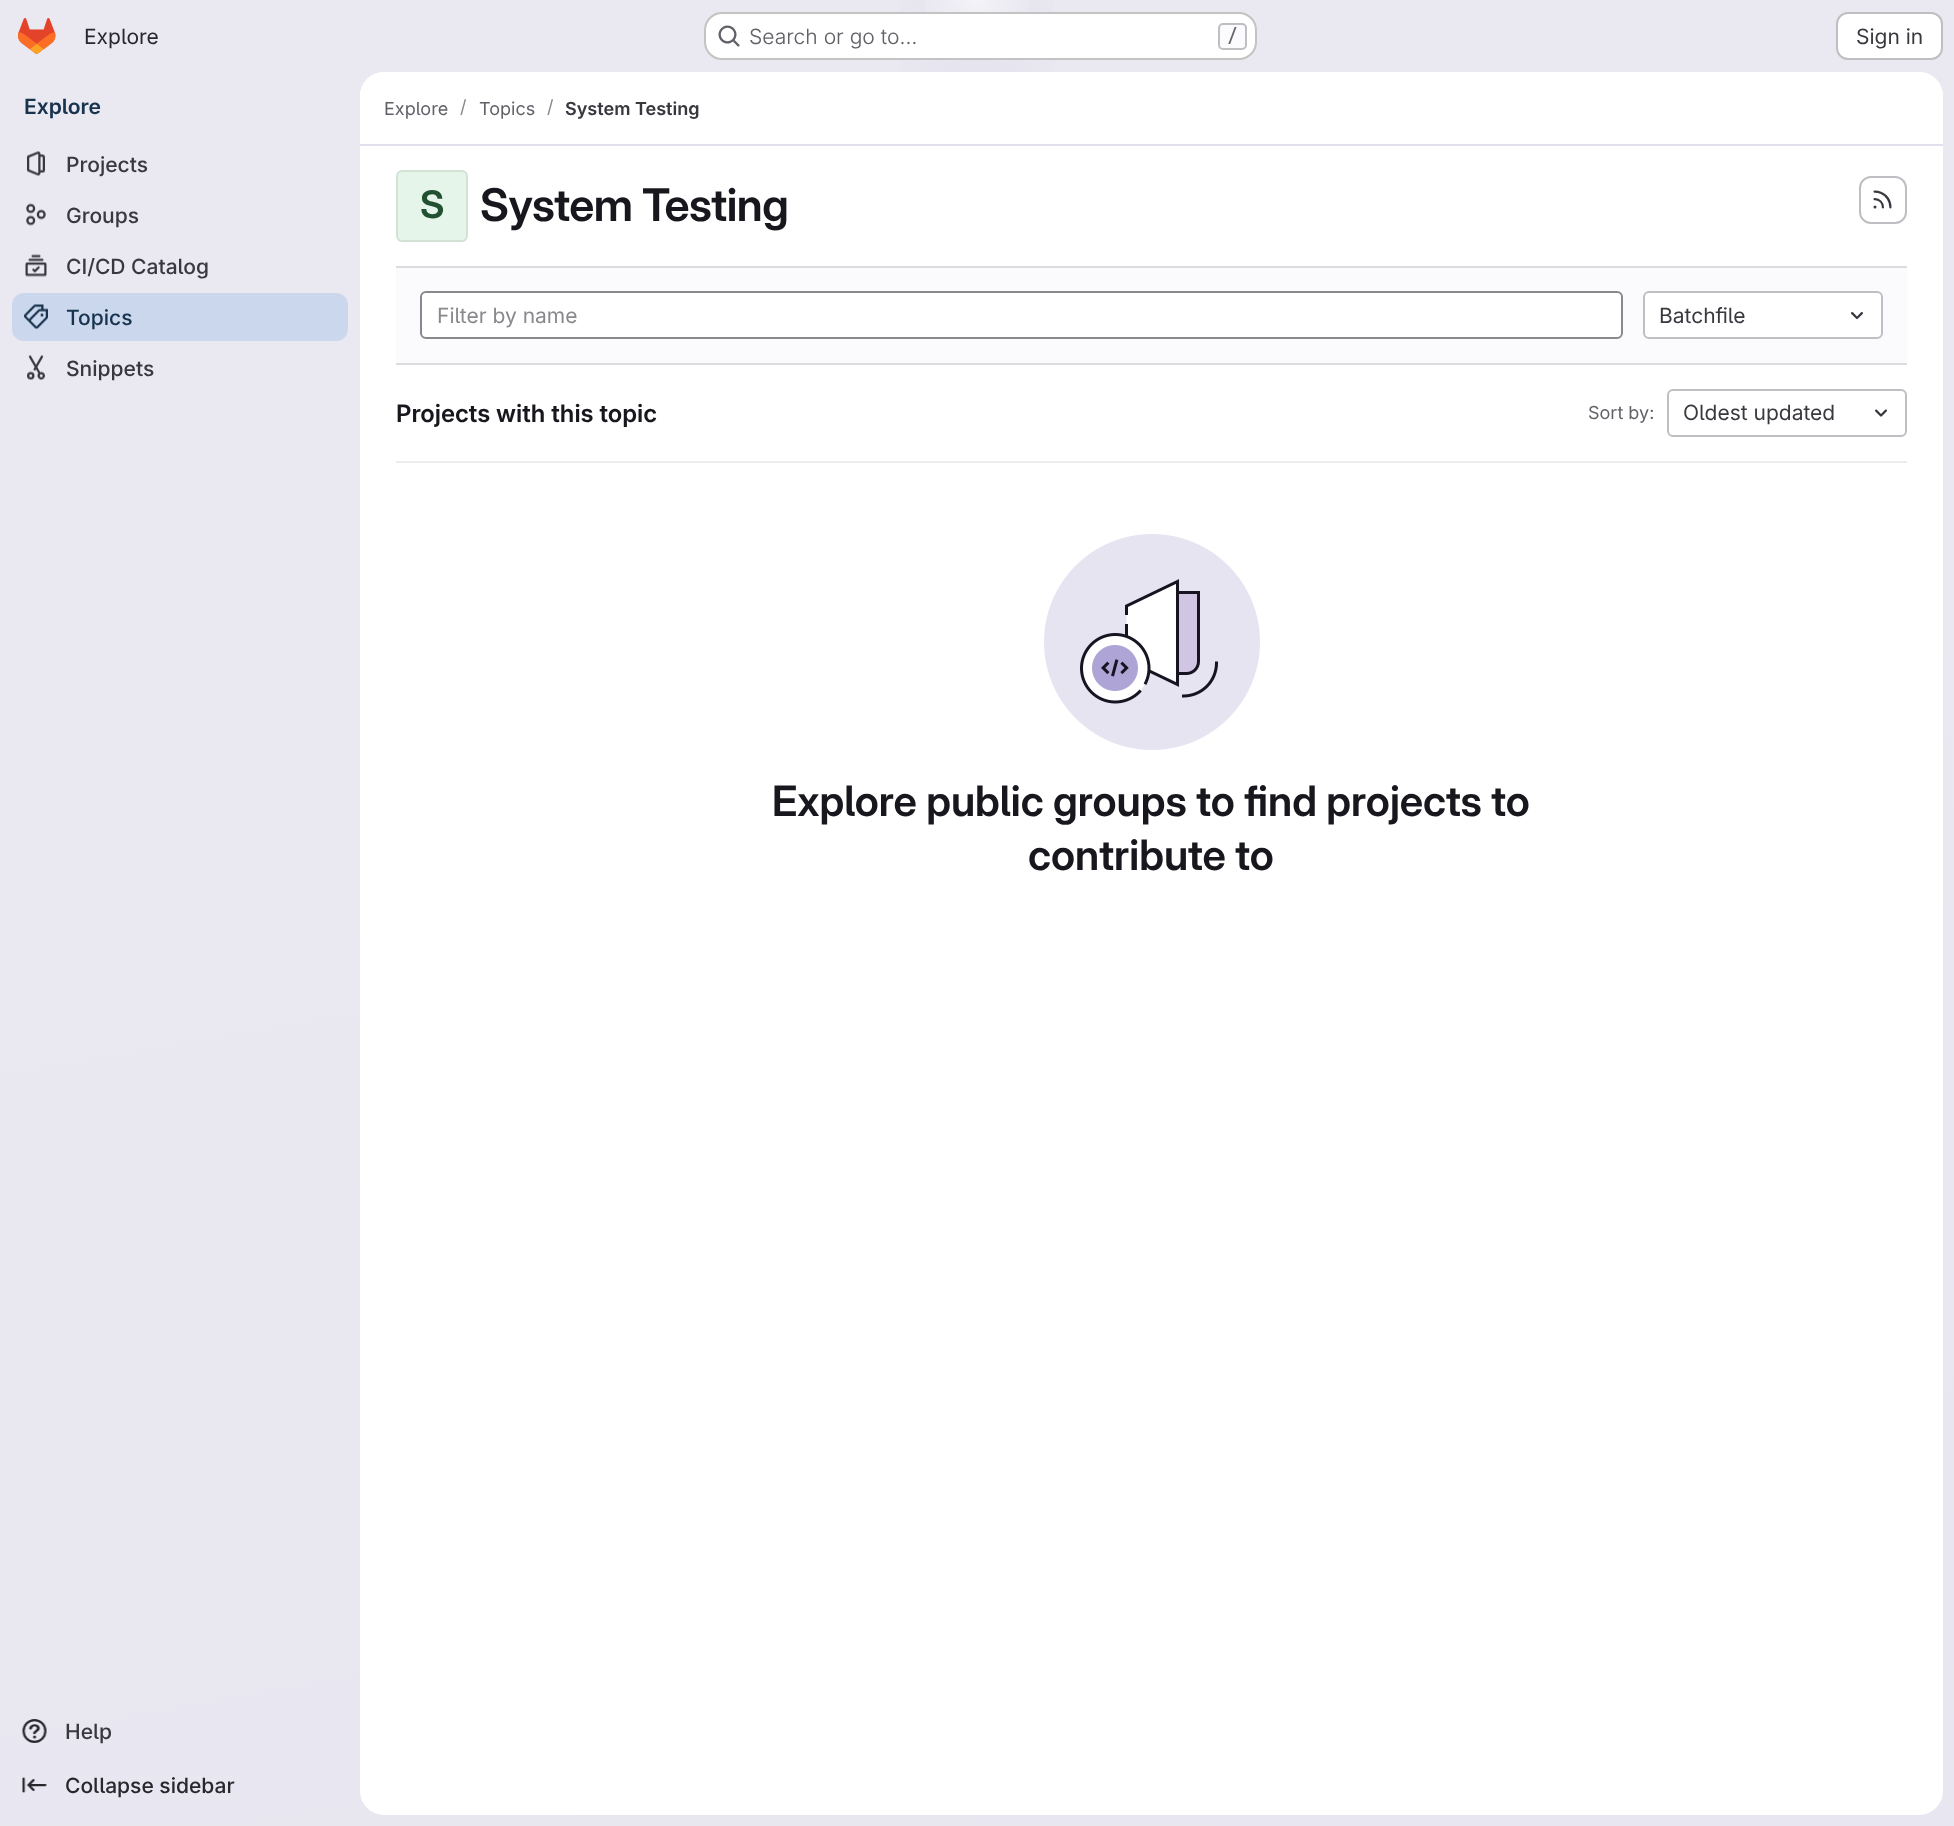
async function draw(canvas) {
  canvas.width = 1954;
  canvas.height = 1826;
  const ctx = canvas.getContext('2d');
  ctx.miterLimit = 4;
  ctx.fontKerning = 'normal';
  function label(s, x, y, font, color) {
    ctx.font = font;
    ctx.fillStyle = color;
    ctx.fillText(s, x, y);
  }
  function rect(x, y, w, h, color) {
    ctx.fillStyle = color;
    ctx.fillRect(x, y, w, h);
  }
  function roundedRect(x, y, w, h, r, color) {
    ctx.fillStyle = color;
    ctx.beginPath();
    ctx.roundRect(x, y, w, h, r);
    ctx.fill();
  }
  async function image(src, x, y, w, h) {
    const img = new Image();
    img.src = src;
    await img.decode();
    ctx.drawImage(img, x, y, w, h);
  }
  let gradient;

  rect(0, 0, 1954, 1826, '#fff');
  gradient = ctx.createLinearGradient(1163, 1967, 792, -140);
  gradient.addColorStop(0, '#e8e6f0');
  gradient.addColorStop(0.7, '#eae9f2');
  ctx.fillStyle = gradient;
  ctx.fillRect(0, 0, 1954, 1826);
  gradient = ctx.createRadialGradient(977, 0, 0, 977, 0, 977);
  gradient.addColorStop(0, '#e4e2ed');
  gradient.addColorStop(0.11, '#e4e2ed00');
  ctx.fillStyle = gradient;
  ctx.beginPath();
  ctx.rect(900, 0, 154, 72);
  ctx.save();
  ctx.clip();
  ctx.scale(1, 1827 / 977);
  ctx.fillRect(0, 0, 1954, 977);
  ctx.restore();
  gradient = ctx.createRadialGradient(977, 0, 0, 977, 0, 977);
  gradient.addColorStop(0, '#e4e2ec');
  gradient.addColorStop(0.08, '#e4e2ec00');
  ctx.fillStyle = gradient;
  ctx.beginPath();
  ctx.rect(952, 6, 50, 54);
  ctx.save();
  ctx.clip();
  ctx.scale(1, 1827 / 977);
  ctx.fillRect(0, 0, 1954, 977);
  ctx.restore();
  gradient = ctx.createRadialGradient(977, 0, 0, 977, 0, 2072);
  gradient.addColorStop(0, '#ffffff99');
  gradient.addColorStop(0.03, '#ffffff00');
  ctx.fillStyle = gradient;
  ctx.fillRect(925, 0, 104, 53);
  await image('assets/img1.png', 18, 18, 38, 36);
  label('Explore', 84, 44, '21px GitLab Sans', '#28272d');
  roundedRect(704, 12, 553, 48, 18, '#fff');
  ctx.beginPath();
  ctx.roundRect(705, 13, 551, 46, 17);
  ctx.strokeStyle = '#0505063d';
  ctx.lineWidth = 2;
  ctx.stroke();
  await image('assets/img2.png', 718, 25, 22, 22);
  label('Search or go to…', 749, 44, '300 21px GitLab Sans', '#626168');
  ctx.fillStyle = '#fbfafd';
  ctx.beginPath();
  ctx.roundRect(1219, 24, 27, 25, 4);
  ctx.fill();
  ctx.strokeStyle = '#bfbfc3';
  ctx.stroke();
  label('/', 1227, 42, '500 18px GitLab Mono', '#626168');
  ctx.fillStyle = '#fff';
  ctx.beginPath();
  ctx.roundRect(1837, 13, 105, 46, 11);
  ctx.fill();
  ctx.stroke();
  label('Sign in', 1856, 44, '21px GitLab Sans', '#3a383f');
  label('Explore', 24, 114, '600 21px "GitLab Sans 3"', '#18334e');
  await image('assets/img3.png', 27, 151, 18, 25);
  label('Projects', 66, 172, '500 21px GitLab Sans', '#3a383f');
  await image('assets/img4.png', 26, 203, 20, 23);
  label('Groups', 66, 223, '500 21px GitLab Sans', '#3a383f');
  await image('assets/img5.png', 25, 254, 22, 23);
  label('CI/CD Catalog', 66, 274, '500 21px GitLab Sans', '#3a383f');
  roundedRect(12, 293, 336, 48, 12, '#cad7ec');
  await image('assets/img6.png', 24, 304, 24, 25);
  label('Topics', 66, 325, '500 21px GitLab Sans', '#18334e');
  await image('assets/img7.png', 27, 355, 18, 25);
  label('Snippets', 66, 376, '500 21px GitLab Sans', '#3a383f');
  await image('assets/img8.png', 22, 1719, 25, 24);
  label('Help', 65, 1739, '500 21px GitLab Sans', '#3a383f');
  await image('assets/img9.png', 22, 1777, 25, 16);
  label('Collapse sidebar', 65, 1793, '500 21px GitLab Sans', '#28272d');
  roundedRect(360, 72, 1583, 1743, 24, '#fff');
  ctx.beginPath();
  ctx.roundRect(360, 72, 1583, 74, [24, 24, 0, 0]);
  ctx.fill();
  rect(360, 144, 1583, 2, '#e1dfec');
  label('Explore', 384, 115, '18px GitLab Sans', '#626168');
  label('/', 460, 113, '18px GitLab Sans', '#89888d');
  label('Topics', 479, 115, '18px GitLab Sans', '#626168');
  label('/', 547, 113, '18px GitLab Sans', '#89888d');
  label('System Testing', 565, 115, '600 18px "GitLab Sans 3"', '#3a383f');
  roundedRect(396, 170, 72, 72, 6, '#e5f5ea');
  ctx.beginPath();
  ctx.roundRect(397, 171, 70, 70, 5);
  ctx.strokeStyle = '#05050614';
  ctx.stroke();
  ctx.letterSpacing = '-0.5px';
  label('S', 420, 218, '600 38px GitLab Sans', '#225131');
  label('System Testing', 480, 221, '600 45px GitLab Sans', '#18171d');
  ctx.beginPath();
  ctx.roundRect(1860, 177, 46, 46, 11);
  ctx.strokeStyle = '#bfbfc3';
  ctx.stroke();
  await image('assets/img10.png', 1873, 190, 19, 19);
  rect(396, 268, 1511, 95, '#fbfafd');
  rect(396, 266, 1511, 2, '#dcdcde');
  rect(396, 363, 1511, 2, '#dcdcde');
  ctx.fillStyle = '#fff';
  ctx.beginPath();
  ctx.roundRect(421, 292, 1201, 46, 5);
  ctx.fill();
  ctx.strokeStyle = '#89888d';
  ctx.stroke();
  ctx.letterSpacing = '0px';
  label('Filter by name', 437, 323, '21px GitLab Sans', '#89888d');
  ctx.fillStyle = '#fff';
  ctx.beginPath();
  ctx.roundRect(1644, 292, 238, 46, 5);
  ctx.fill();
  ctx.strokeStyle = '#bfbfc3';
  ctx.stroke();
  label('Batchfile', 1659, 323, '21px GitLab Sans', '#3a383f');
  await image('assets/img11.png', 1851, 312, 12, 8);
  rect(396, 461, 1511, 2, '#ececef');
  label('Projects with this topic', 396, 422, '600 24px "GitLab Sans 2"', '#18171d');
  label('Sort by:', 1588, 419, '18px GitLab Sans', '#626168');
  ctx.beginPath();
  ctx.roundRect(1668, 390, 238, 46, 5);
  ctx.stroke();
  label('Oldest updated', 1683, 420, '21px GitLab Sans', '#3a383f');
  await image('assets/img12.png', 1875, 409, 12, 8);
  await image('assets/img13.png', 1044, 534, 216, 216);
  label('Explore public groups to find projects to', 772, 816, '600 42px GitLab Sans', '#18171d');
  label('contribute to', 1028, 870, '600 42px GitLab Sans', '#18171d');
}

draw(document.querySelector('canvas'));
